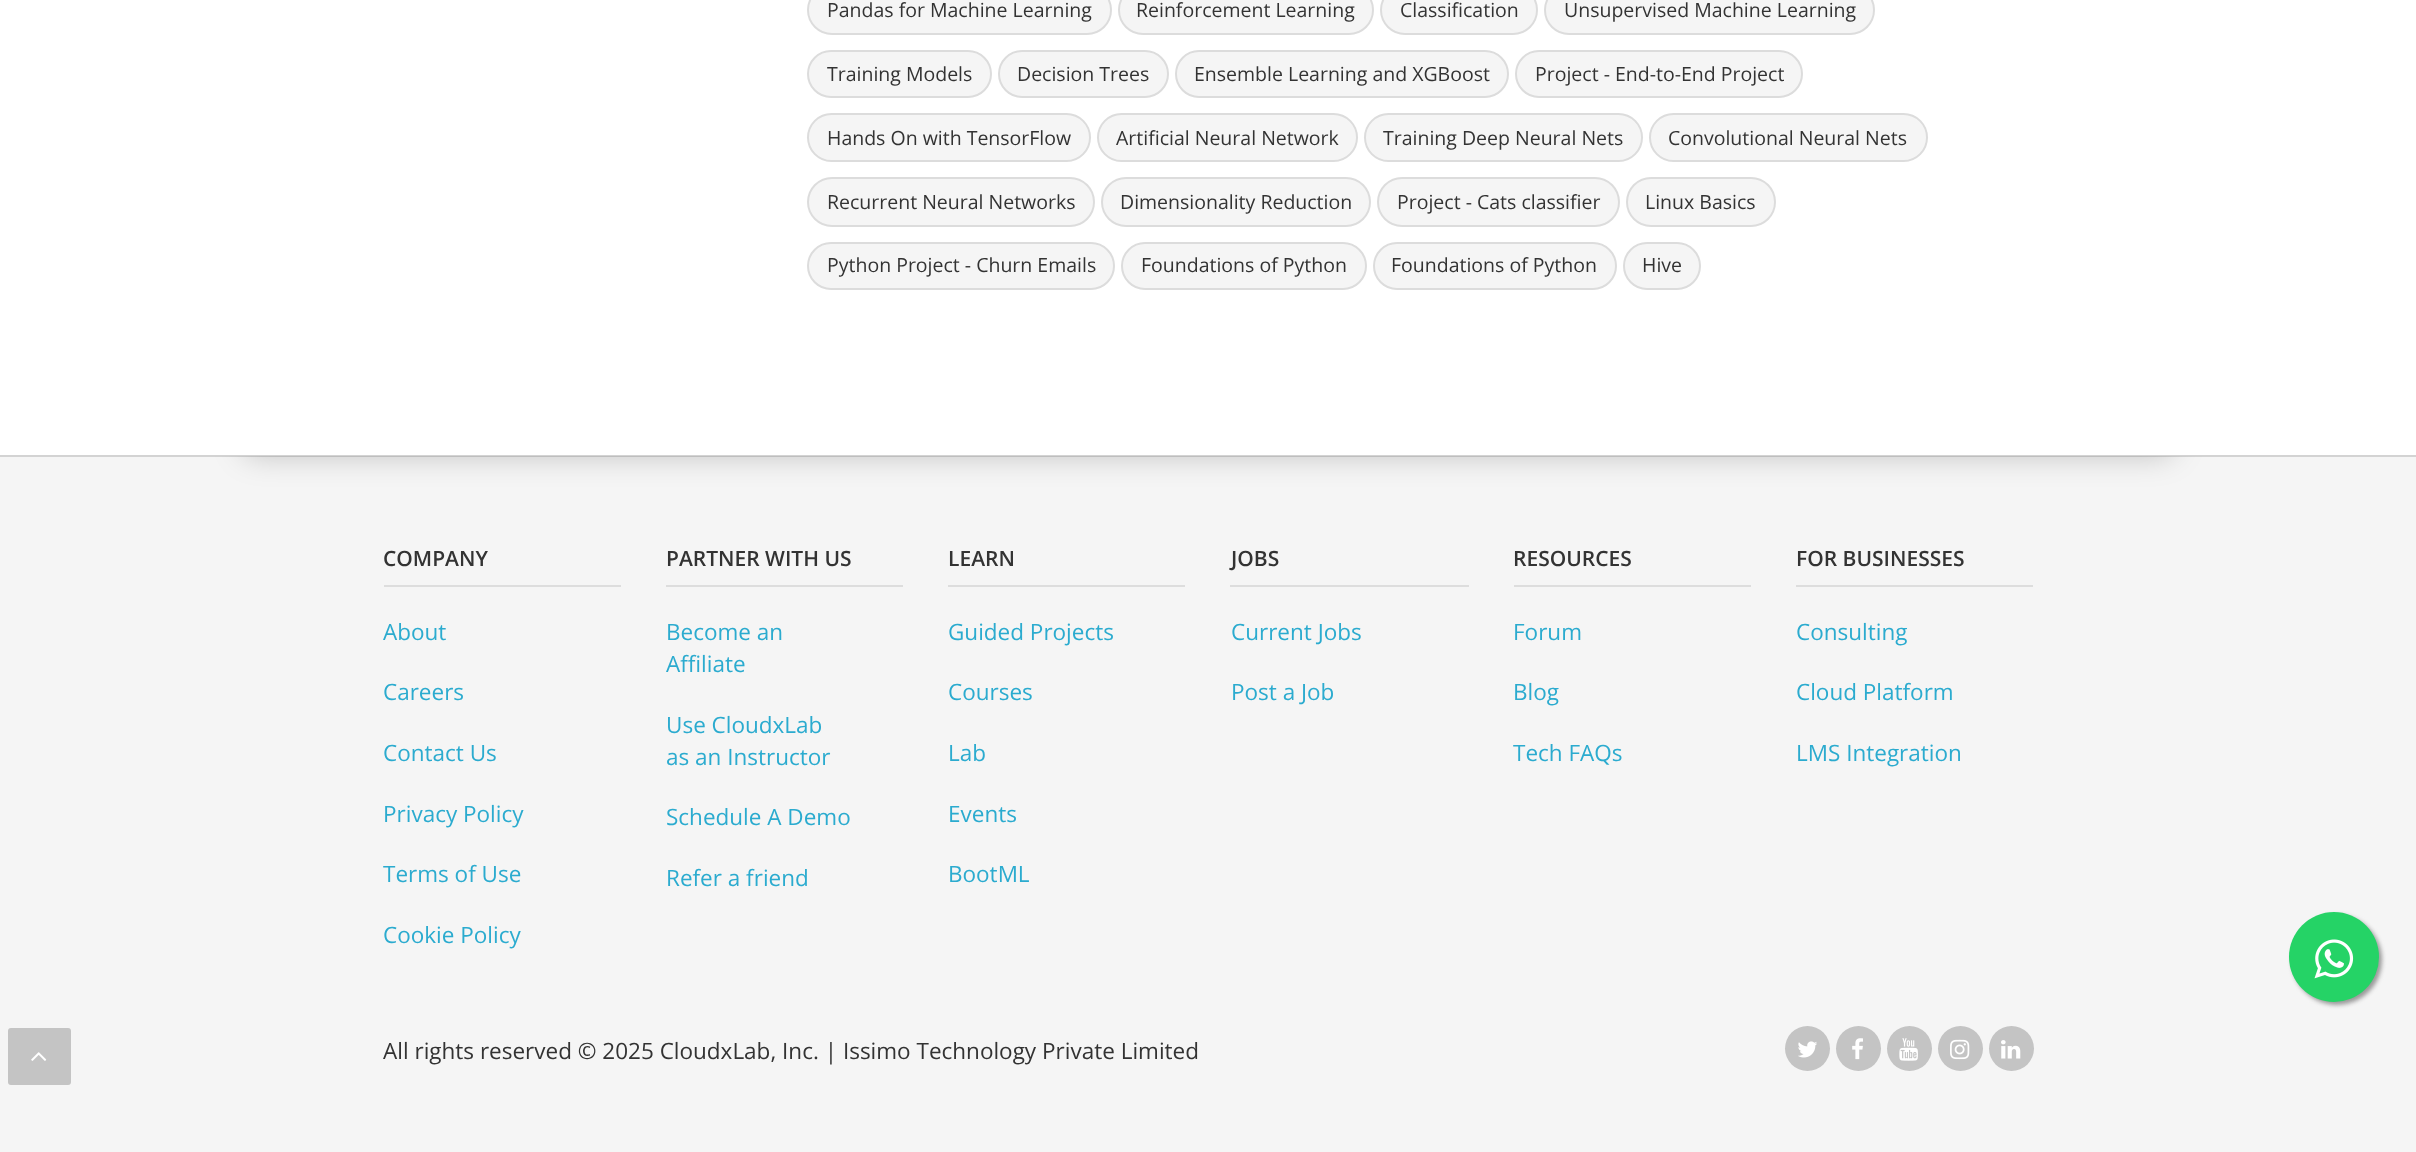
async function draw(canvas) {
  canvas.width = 2416;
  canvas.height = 1152;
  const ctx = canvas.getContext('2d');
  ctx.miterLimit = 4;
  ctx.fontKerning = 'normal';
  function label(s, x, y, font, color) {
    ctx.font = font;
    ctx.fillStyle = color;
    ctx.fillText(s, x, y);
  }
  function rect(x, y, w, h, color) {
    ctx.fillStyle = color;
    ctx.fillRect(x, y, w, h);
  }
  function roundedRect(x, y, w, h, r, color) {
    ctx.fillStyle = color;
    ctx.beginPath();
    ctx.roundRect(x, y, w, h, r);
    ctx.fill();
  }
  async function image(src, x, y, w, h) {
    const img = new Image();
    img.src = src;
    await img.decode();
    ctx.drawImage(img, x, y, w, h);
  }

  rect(0, 0, 2416, 1152, '#fff');
  roundedRect(807, -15, 305, 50, 25, '#f5f5f5');
  ctx.beginPath();
  ctx.roundRect(808, -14, 303, 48, 24);
  ctx.strokeStyle = '#0000001a';
  ctx.lineWidth = 2;
  ctx.stroke();
  label('Pandas for Machine Learning', 827, 17, '19.5px Open Sans', '#333');
  roundedRect(1118, -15, 256, 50, 25, '#f5f5f5');
  ctx.beginPath();
  ctx.roundRect(1119, -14, 254, 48, 24);
  ctx.stroke();
  label('Reinforcement Learning', 1136, 17, '19.5px Open Sans', '#333');
  roundedRect(1380, -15, 158, 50, 25, '#f5f5f5');
  ctx.beginPath();
  ctx.roundRect(1381, -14, 156, 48, 24);
  ctx.stroke();
  label('Classification', 1400, 17, '19.5px Open Sans', '#333');
  roundedRect(1544, -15, 331, 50, 25, '#f5f5f5');
  ctx.beginPath();
  ctx.roundRect(1545, -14, 329, 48, 24);
  ctx.stroke();
  label('Unsupervised Machine Learning', 1564, 17, '19.5px Open Sans', '#333');
  roundedRect(807, 50, 185, 48, 24, '#f5f5f5');
  ctx.beginPath();
  ctx.roundRect(808, 51, 183, 46, 23);
  ctx.stroke();
  label('Training Models', 827, 81, '19.5px Open Sans', '#333');
  roundedRect(998, 50, 171, 48, 24, '#f5f5f5');
  ctx.beginPath();
  ctx.roundRect(999, 51, 169, 46, 23);
  ctx.stroke();
  label('Decision Trees', 1017, 81, '19.5px Open Sans', '#333');
  roundedRect(1175, 50, 334, 48, 24, '#f5f5f5');
  ctx.beginPath();
  ctx.roundRect(1176, 51, 332, 46, 23);
  ctx.stroke();
  label('Ensemble Learning and XGBoost', 1194, 81, '19.5px Open Sans', '#333');
  roundedRect(1515, 50, 288, 48, 24, '#f5f5f5');
  ctx.beginPath();
  ctx.roundRect(1516, 51, 286, 46, 23);
  ctx.stroke();
  label('Project - End-to-End Project', 1535, 81, '19.5px Open Sans', '#333');
  roundedRect(807, 113, 284, 49, 24.5, '#f5f5f5');
  ctx.beginPath();
  ctx.roundRect(808, 114, 282, 47, 23.5);
  ctx.stroke();
  label('Hands On with TensorFlow', 827, 145, '19.5px Open Sans', '#333');
  roundedRect(1097, 113, 261, 49, 24.5, '#f5f5f5');
  ctx.beginPath();
  ctx.roundRect(1098, 114, 259, 47, 23.5);
  ctx.stroke();
  label('Artificial Neural Network', 1116, 145, '19.5px Open Sans', '#333');
  roundedRect(1364, 113, 279, 49, 24.5, '#f5f5f5');
  ctx.beginPath();
  ctx.roundRect(1365, 114, 277, 47, 23.5);
  ctx.stroke();
  label('Training Deep Neural Nets', 1383, 145, '19.5px Open Sans', '#333');
  roundedRect(1649, 113, 279, 49, 24.5, '#f5f5f5');
  ctx.beginPath();
  ctx.roundRect(1650, 114, 277, 47, 23.5);
  ctx.stroke();
  label('Convolutional Neural Nets', 1668, 145, '19.5px Open Sans', '#333');
  roundedRect(807, 177, 288, 50, 25, '#f5f5f5');
  ctx.beginPath();
  ctx.roundRect(808, 178, 286, 48, 24);
  ctx.stroke();
  label('Recurrent Neural Networks', 827, 209, '19.5px Open Sans', '#333');
  roundedRect(1101, 177, 270, 50, 25, '#f5f5f5');
  ctx.beginPath();
  ctx.roundRect(1102, 178, 268, 48, 24);
  ctx.stroke();
  label('Dimensionality Reduction', 1120, 209, '19.5px Open Sans', '#333');
  roundedRect(1377, 177, 243, 50, 25, '#f5f5f5');
  ctx.beginPath();
  ctx.roundRect(1378, 178, 241, 48, 24);
  ctx.stroke();
  label('Project - Cats classifier', 1397, 209, '19.5px Open Sans', '#333');
  roundedRect(1626, 177, 150, 50, 25, '#f5f5f5');
  ctx.beginPath();
  ctx.roundRect(1627, 178, 148, 48, 24);
  ctx.stroke();
  label('Linux Basics', 1645, 209, '19.5px Open Sans', '#333');
  roundedRect(807, 242, 308, 48, 24, '#f5f5f5');
  ctx.beginPath();
  ctx.roundRect(808, 243, 306, 46, 23);
  ctx.stroke();
  label('Python Project - Churn Emails', 827, 272, '19.5px Open Sans', '#333');
  roundedRect(1121, 242, 246, 48, 24, '#f5f5f5');
  ctx.beginPath();
  ctx.roundRect(1122, 243, 244, 46, 23);
  ctx.stroke();
  label('Foundations of Python', 1141, 272, '19.5px Open Sans', '#333');
  roundedRect(1373, 242, 244, 48, 24, '#f5f5f5');
  ctx.beginPath();
  ctx.roundRect(1374, 243, 242, 46, 23);
  ctx.stroke();
  label('Foundations of Python', 1391, 272, '19.5px Open Sans', '#333');
  roundedRect(1623, 242, 78, 48, 24, '#f5f5f5');
  ctx.beginPath();
  ctx.roundRect(1624, 243, 76, 46, 23);
  ctx.stroke();
  label('Hive', 1642, 272, '19.5px Open Sans', '#333');
  rect(0, 457, 2416, 695, '#f5f5f5');
  rect(0, 455, 2416, 2, '#d3d3d3');
  ctx.save();
  ctx.beginPath();
  ctx.rect(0, 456, 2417, 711);
  ctx.clip();
  ctx.fillStyle = '#00000033';
  ctx.filter = 'blur(15px)';
  ctx.beginPath();
  ctx.roundRect(242, -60, 1933, 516, 15);
  ctx.fill();
  ctx.filter = 'none';
  ctx.restore();
  rect(384, 585, 237, 2, '#ddd');
  label('COMPANY', 383, 566, '600 21px Open Sans', '#333');
  label('About', 383, 640, '22.5px Open Sans', '#2babcf');
  label('Careers', 383, 700, '22.5px Open Sans', '#2babcf');
  label('Contact Us', 383, 761, '22.5px Open Sans', '#2babcf');
  label('Privacy Policy', 383, 822, '22.5px Open Sans', '#2babcf');
  label('Terms of Use', 383, 882, '22.5px Open Sans', '#2babcf');
  label('Cookie Policy', 383, 943, '22.5px Open Sans', '#2babcf');
  rect(666, 585, 237, 2, '#ddd');
  label('PARTNER WITH US', 666, 566, '600 21px Open Sans', '#333');
  label('Become an', 666, 640, '22.5px Open Sans', '#2babcf');
  label('Affiliate', 666, 672, '22.5px Open Sans', '#2babcf');
  label('Use CloudxLab', 666, 733, '22.5px Open Sans', '#2babcf');
  label('as an Instructor', 666, 765, '22.5px Open Sans', '#2babcf');
  label('Schedule A Demo', 666, 825, '22.5px Open Sans', '#2babcf');
  label('Refer a friend', 666, 886, '22.5px Open Sans', '#2babcf');
  rect(948, 585, 237, 2, '#ddd');
  label('LEARN', 948, 566, '600 21px Open Sans', '#333');
  label('Guided Projects', 948, 640, '22.5px Open Sans', '#2babcf');
  label('Courses', 948, 700, '22.5px Open Sans', '#2babcf');
  label('Lab', 948, 761, '22.5px Open Sans', '#2babcf');
  label('Events', 948, 822, '22.5px Open Sans', '#2babcf');
  label('BootML', 948, 882, '22.5px Open Sans', '#2babcf');
  rect(1230, 585, 239, 2, '#ddd');
  label('JOBS', 1231, 566, '600 21px Open Sans', '#333');
  label('Current Jobs', 1231, 640, '22.5px Open Sans', '#2babcf');
  label('Post a Job', 1231, 700, '22.5px Open Sans', '#2babcf');
  rect(1514, 585, 237, 2, '#ddd');
  label('RESOURCES', 1513, 566, '600 21px Open Sans', '#333');
  label('Forum', 1513, 640, '22.5px Open Sans', '#2babcf');
  label('Blog', 1513, 700, '22.5px Open Sans', '#2babcf');
  label('Tech FAQs', 1513, 761, '22.5px Open Sans', '#2babcf');
  rect(1796, 585, 237, 2, '#ddd');
  label('FOR BUSINESSES', 1796, 566, '600 21px Open Sans', '#333');
  label('Consulting', 1796, 640, '22.5px Open Sans', '#2babcf');
  label('Cloud Platform', 1796, 700, '22.5px Open Sans', '#2babcf');
  label('LMS Integration', 1796, 761, '22.5px Open Sans', '#2babcf');
  label('All rights reserved © 2025 CloudxLab, Inc. | Issimo Technology Private Limited', 383, 1059, '22.5px Open Sans', '#333');
  ctx.fillStyle = '#c4c4c4';
  ctx.beginPath();
  ctx.arc(1807.5, 1048.5, 22.5, 0, 2 * Math.PI);
  ctx.fill();
  await image('assets/img1.png', 1798, 1041, 19, 17);
  ctx.beginPath();
  ctx.arc(1858.5, 1048.5, 22.5, 0, 2 * Math.PI);
  ctx.fill();
  await image('assets/img2.png', 1852, 1038, 11, 22);
  ctx.beginPath();
  ctx.arc(1909.5, 1048.5, 22.5, 0, 2 * Math.PI);
  ctx.fill();
  await image('assets/img3.png', 1899, 1038, 19, 23);
  ctx.beginPath();
  ctx.arc(1960.5, 1048.5, 22.5, 0, 2 * Math.PI);
  ctx.fill();
  await image('assets/img4.png', 1950, 1039, 20, 21);
  ctx.beginPath();
  ctx.arc(2011.5, 1048.5, 22.5, 0, 2 * Math.PI);
  ctx.fill();
  await image('assets/img5.png', 2001, 1040, 20, 19);
  ctx.fillStyle = '#999';
  ctx.filter = 'blur(2px)';
  ctx.beginPath();
  ctx.roundRect(2292, 915, 90, 90, 45);
  ctx.fill();
  ctx.filter = 'none';
  ctx.fillStyle = '#25d366';
  ctx.beginPath();
  ctx.arc(2334, 957, 45, 0, 2 * Math.PI);
  ctx.fill();
  await image('assets/img6.png', 2314, 939, 40, 40);
  roundedRect(8, 1028, 63, 57, 3, '#c4c4c4');
  await image('assets/img7.png', 31, 1052, 16, 9);
}

draw(document.querySelector('canvas'));
